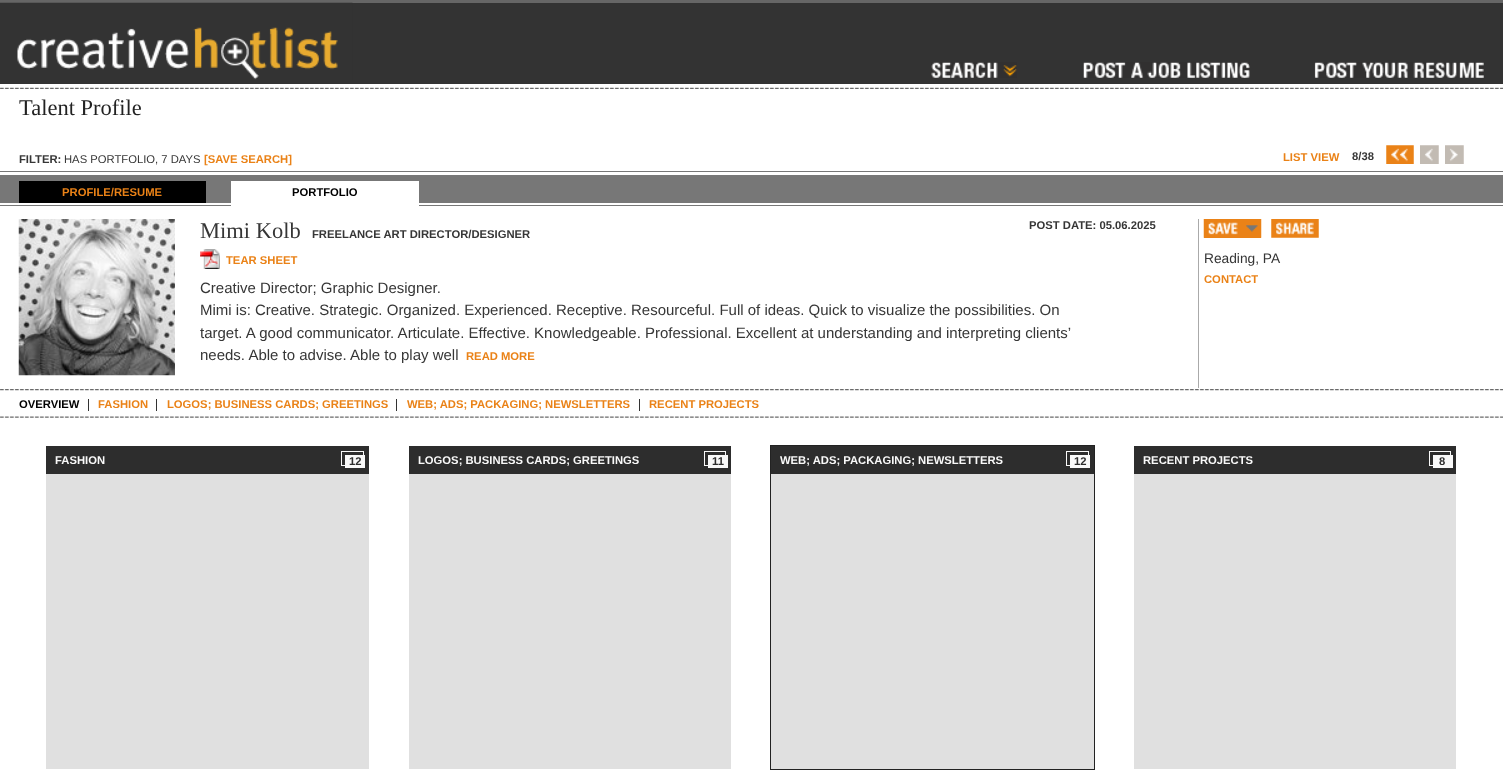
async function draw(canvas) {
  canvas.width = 1503;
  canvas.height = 774;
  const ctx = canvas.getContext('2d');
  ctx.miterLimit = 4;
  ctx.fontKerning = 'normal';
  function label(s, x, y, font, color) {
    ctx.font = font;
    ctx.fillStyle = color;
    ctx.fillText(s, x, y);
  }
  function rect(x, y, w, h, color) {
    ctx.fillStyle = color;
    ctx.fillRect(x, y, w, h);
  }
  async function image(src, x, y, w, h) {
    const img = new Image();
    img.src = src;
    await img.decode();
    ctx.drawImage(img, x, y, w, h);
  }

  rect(0, 0, 1503, 774, '#fff');
  rect(0, 0, 1503, 3, '#666');
  rect(0, 3, 1503, 81, '#333');
  await image('assets/img1.png', 0, 2, 353, 78);
  await image('assets/img2.png', 931, 62, 86, 16);
  await image('assets/img3.png', 1083, 62, 167, 16);
  await image('assets/img4.png', 1314, 62, 170, 16);
  await image('assets/img5.png', 0, 87, 1503, 2);
  label('Talent Profile', 19, 115, '22.5px Liberation Serif', '#222');
  label('FILTER:', 19, 163, 'bold 11.25px Liberation Sans', '#363636');
  label('HAS PORTFOLIO, 7 DAYS', 64, 163, '11.25px Liberation Sans', '#363636');
  label('[SAVE SEARCH]', 204, 163, 'bold 11.25px Liberation Sans', '#ea8217');
  label('LIST VIEW', 1283, 161, 'bold 11.25px Liberation Sans', '#ea8217');
  label('8/38', 1352, 160, 'bold 11.25px Liberation Sans', '#363636');
  await image('assets/img6.png', 1386, 145, 28, 19);
  await image('assets/img7.png', 1420, 145, 19, 19);
  await image('assets/img8.png', 1445, 145, 19, 19);
  rect(0, 171, 1503, 1, '#777');
  rect(0, 205, 1503, 1, '#777');
  rect(0, 175, 1503, 28, '#777');
  rect(19, 181, 187, 22, '#000');
  label('PROFILE/RESUME', 62, 196, 'bold 11.25px Liberation Sans', '#ea8217');
  rect(231, 181, 188, 25, '#fff');
  label('PORTFOLIO', 292, 196, 'bold 11.25px Liberation Sans', '#000');
  await image('assets/img9.png', 18, 219, 157, 157);
  label('Mimi Kolb', 200, 238, '22.5px Liberation Serif', '#363636');
  label('FREELANCE ART DIRECTOR/DESIGNER', 312, 238, 'bold 11.25px Liberation Sans', '#363636');
  await image('assets/img10.png', 200, 249, 20, 20);
  label('TEAR SHEET', 226, 264, 'bold 11.25px Liberation Sans', '#ea8217');
  label('Creative Director; Graphic Designer.', 200, 293, '15px Liberation Sans', '#363636');
  label('Mimi is: Creative. Strategic. Organized. Experienced. Receptive. Resourceful. Full of ideas. Quick to visualize the possibilities. On', 200, 315, '15px Liberation Sans', '#363636');
  label('target. A good communicator. Articulate. Effective. Knowledgeable. Professional. Excellent at understanding and interpreting clients’', 200, 338, '15px Liberation Sans', '#363636');
  label('needs. Able to advise. Able to play well', 200, 360, '15px Liberation Sans', '#363636');
  label('READ MORE', 466, 360, 'bold 11.25px Liberation Sans', '#ea8217');
  rect(1198, 219, 1, 169, '#aaa');
  rect(1204, 219, 57, 19, '#ea8217');
  await image('assets/img11.png', 1203, 219, 35, 19);
  label('POST DATE: 05.06.2025', 1029, 229, 'bold 11.25px Liberation Sans', '#363636');
  await image('assets/img12.png', 1246, 219, 16, 19);
  await image('assets/img13.png', 1271, 219, 48, 19);
  label('Reading, PA', 1204, 263, '13.75px Liberation Sans', '#363636');
  label('CONTACT', 1204, 283, 'bold 11.25px Liberation Sans', '#ea8217');
  await image('assets/img14.png', 0, 389, 1503, 2);
  label('OVERVIEW', 19, 408, 'bold 11.25px Liberation Sans', '#000');
  rect(88, 399, 1, 12, '#333');
  label('FASHION', 98, 408, 'bold 11.25px Liberation Sans', '#ea8217');
  rect(156, 399, 1, 12, '#333');
  label('LOGOS; BUSINESS CARDS; GREETINGS', 167, 408, 'bold 11.25px Liberation Sans', '#ea8217');
  rect(396, 399, 1, 12, '#333');
  label('WEB; ADS; PACKAGING; NEWSLETTERS', 407, 408, 'bold 11.25px Liberation Sans', '#ea8217');
  rect(639, 399, 1, 12, '#333');
  label('RECENT PROJECTS', 649, 408, 'bold 11.25px Liberation Sans', '#ea8217');
  await image('assets/img15.png', 0, 416, 1503, 2);
  rect(46, 474, 323, 295, '#e0e0e0');
  rect(46, 446, 323, 28, '#2d2d2d');
  label('FASHION', 55, 464, 'bold 11.25px Liberation Sans', '#f9f9f9');
  ctx.strokeStyle = '#f9f9f9';
  ctx.strokeRect(341.5, 451.5, 22, 14);
  rect(345, 455, 20, 13, '#f9f9f9');
  label('12', 349, 465, 'bold 11.25px Liberation Sans', '#2d2d2d');
  rect(409, 474, 322, 295, '#e0e0e0');
  rect(409, 446, 322, 28, '#2d2d2d');
  label('LOGOS; BUSINESS CARDS; GREETINGS', 418, 464, 'bold 11.25px Liberation Sans', '#f9f9f9');
  ctx.strokeRect(704.5, 451.5, 21, 14);
  rect(708, 455, 20, 13, '#f9f9f9');
  label('11', 712, 465, 'bold 11.25px Liberation Sans', '#2d2d2d');
  ctx.strokeStyle = '#222';
  ctx.strokeRect(770.5, 445.5, 324, 324);
  rect(771, 474, 323, 295, '#e0e0e0');
  rect(771, 446, 323, 28, '#2d2d2d');
  label('WEB; ADS; PACKAGING; NEWSLETTERS', 780, 464, 'bold 11.25px Liberation Sans', '#f9f9f9');
  ctx.strokeStyle = '#f9f9f9';
  ctx.strokeRect(1066.5, 451.5, 22, 14);
  rect(1070, 455, 20, 13, '#f9f9f9');
  label('12', 1074, 465, 'bold 11.25px Liberation Sans', '#2d2d2d');
  rect(1134, 474, 322, 295, '#e0e0e0');
  rect(1134, 446, 322, 28, '#2d2d2d');
  label('RECENT PROJECTS', 1143, 464, 'bold 11.25px Liberation Sans', '#f9f9f9');
  ctx.strokeRect(1429.5, 451.5, 21, 14);
  rect(1433, 455, 20, 13, '#f9f9f9');
  label('8', 1439, 465, 'bold 11.25px Liberation Sans', '#2d2d2d');
}

draw(document.querySelector('canvas'));
